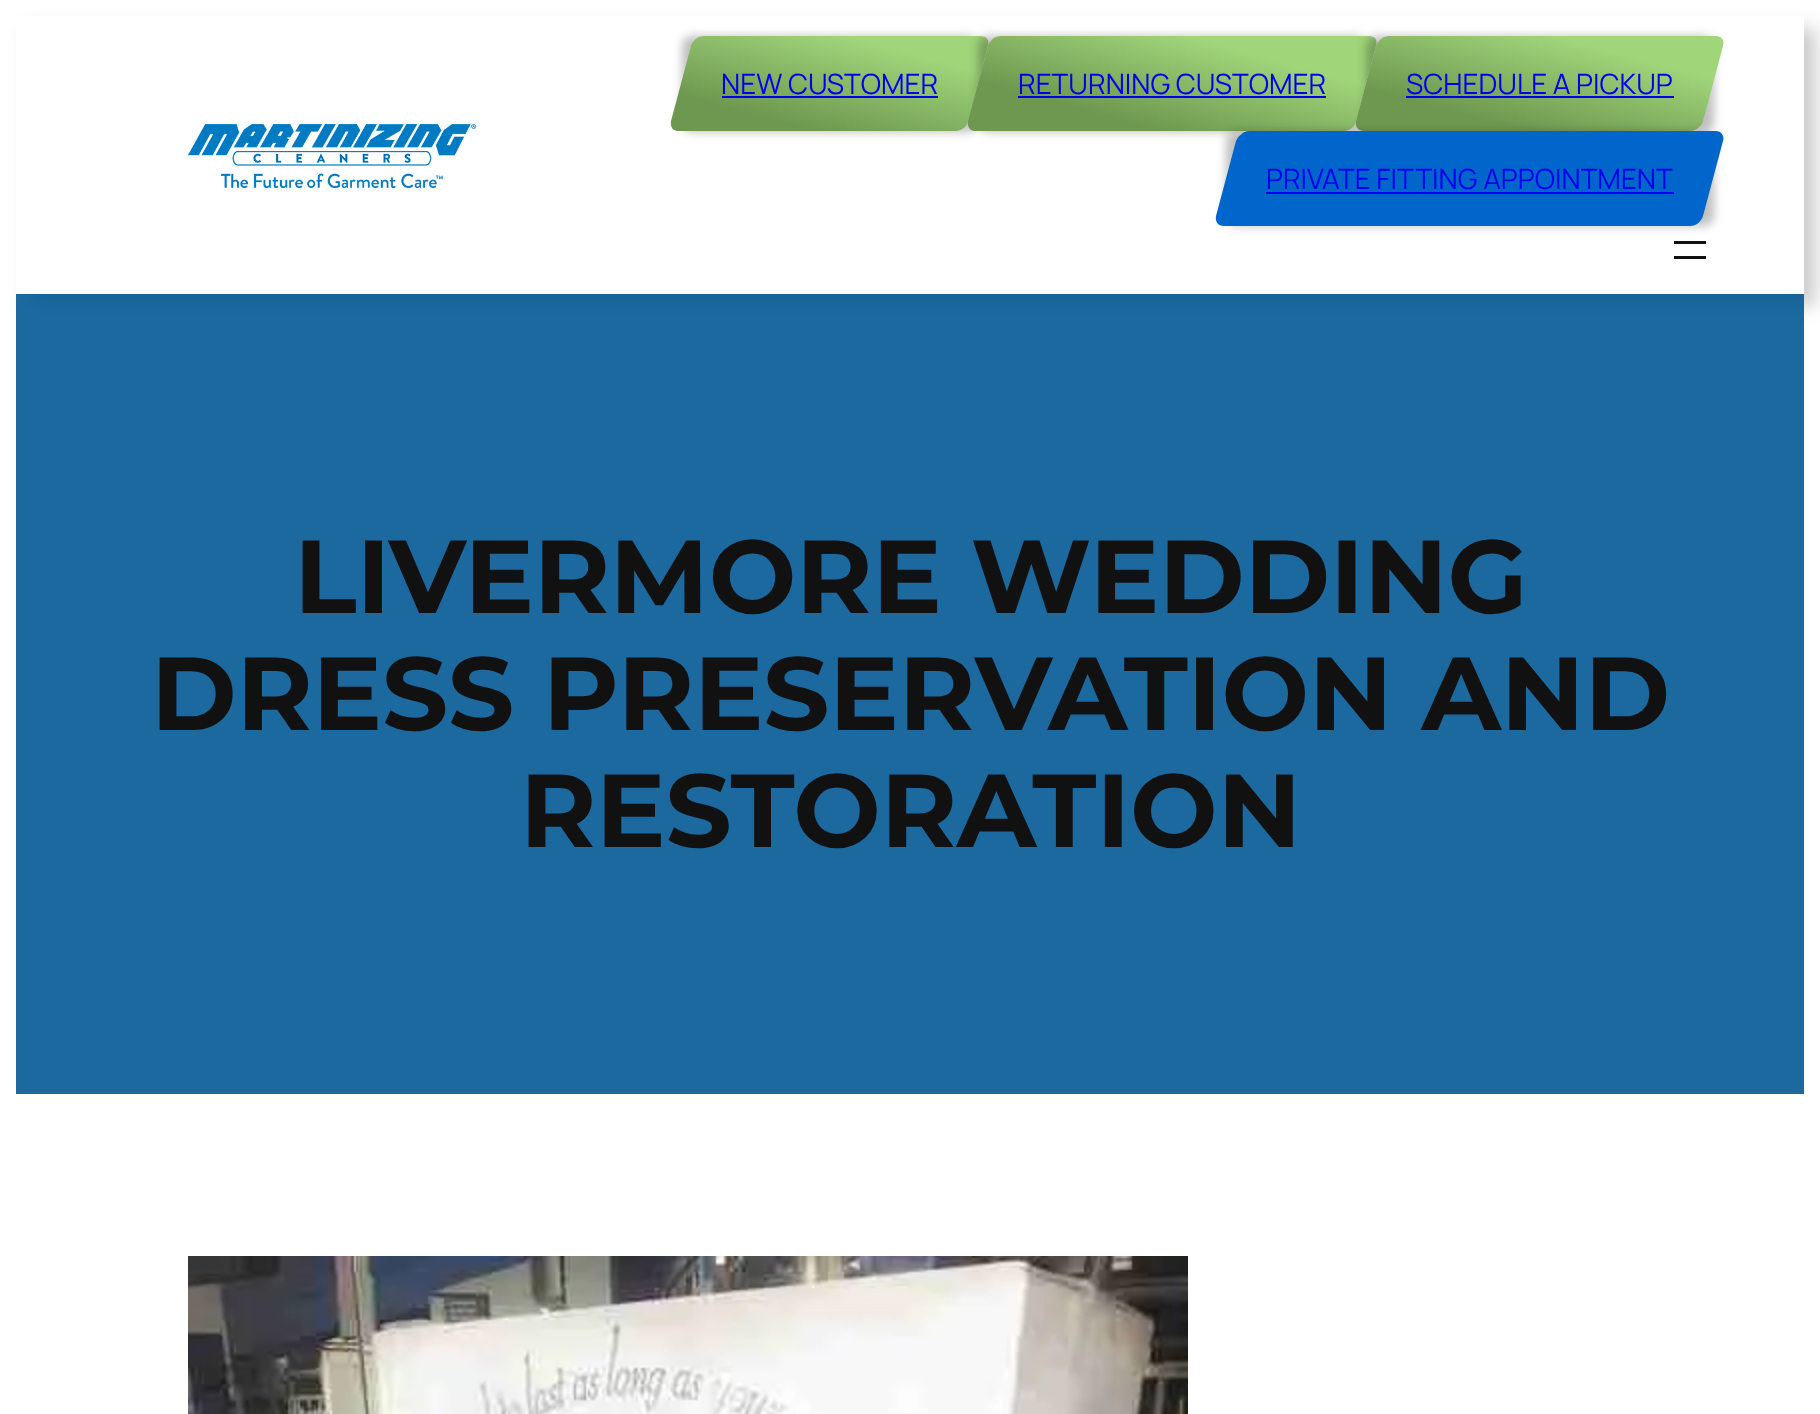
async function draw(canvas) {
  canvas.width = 1820;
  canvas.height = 1414;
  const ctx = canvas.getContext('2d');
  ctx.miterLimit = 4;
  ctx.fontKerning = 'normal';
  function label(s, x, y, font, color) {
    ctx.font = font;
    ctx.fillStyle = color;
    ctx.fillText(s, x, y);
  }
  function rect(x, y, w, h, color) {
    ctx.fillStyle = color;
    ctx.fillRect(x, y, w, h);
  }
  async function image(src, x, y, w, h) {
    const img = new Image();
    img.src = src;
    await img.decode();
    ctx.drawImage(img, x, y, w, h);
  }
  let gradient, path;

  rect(0, 0, 1820, 1414, '#fff');
  ctx.save();
  path = new Path2D('M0 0H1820V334H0ZM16 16H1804V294H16Z');
  ctx.clip(path, 'evenodd');
  ctx.fillStyle = '#00000033';
  ctx.filter = 'blur(9px)';
  ctx.beginPath();
  ctx.rect(28, 28, 1788, 278);
  ctx.fill();
  ctx.filter = 'none';
  ctx.restore();
  await image('assets/img1.png', 188, 124, 288, 64);
  ctx.fillStyle = '#00000040';
  ctx.filter = 'blur(5px)';
  ctx.beginPath();
  ctx.roundRect(682, 36, 296, 96, 10);
  ctx.fill();
  ctx.filter = 'none';
  gradient = ctx.createLinearGradient(842, 36, 817, 131);
  gradient.addColorStop(0, '#a0d57a');
  gradient.addColorStop(1, '#6e9850');
  ctx.fillStyle = gradient;
  path = new Path2D('M704 36H981C986 36 990 40 988 46L968 121C967 127 961 131 955 131H678C673 131 670 127 671 121L691 46C693 40 698 36 704 36Z');
  ctx.fill(path);
  label('NEW CUSTOMER', 721, 94, '28px Manrope', '#00e');
  rect(722, 96, 216, 2, '#00e');
  ctx.fillStyle = '#00000040';
  ctx.filter = 'blur(5px)';
  ctx.beginPath();
  ctx.roundRect(978, 36, 388, 96, 10);
  ctx.fill();
  ctx.filter = 'none';
  gradient = ctx.createLinearGradient(1185, 36, 1159, 131);
  gradient.addColorStop(0, '#a0d57a');
  gradient.addColorStop(1, '#6e9850');
  ctx.fillStyle = gradient;
  path = new Path2D('M1001 36H1369C1375 36 1378 40 1376 46L1356 121C1355 127 1349 131 1344 131H975C970 131 967 127 968 121L988 46C990 40 995 36 1001 36Z');
  ctx.fill(path);
  label('RETURNING CUSTOMER', 1018, 94, '28px Manrope', '#00e');
  rect(1018, 96, 308, 2, '#00e');
  ctx.fillStyle = '#00000040';
  ctx.filter = 'blur(5px)';
  ctx.beginPath();
  ctx.roundRect(1366, 36, 348, 96, 10);
  ctx.fill();
  ctx.filter = 'none';
  gradient = ctx.createLinearGradient(1552, 36, 1527, 131);
  gradient.addColorStop(0, '#a0d57a');
  gradient.addColorStop(1, '#6e9850');
  ctx.fillStyle = gradient;
  path = new Path2D('M1389 36H1716C1721 36 1725 40 1723 46L1703 121C1701 127 1696 131 1690 131H1364C1358 131 1355 127 1356 121L1376 46C1378 40 1384 36 1389 36Z');
  ctx.fill(path);
  label('SCHEDULE A PICKUP', 1406, 94, '28px Manrope', '#00e');
  rect(1406, 96, 268, 2, '#00e');
  rect(1674, 241, 32, 3, '#111');
  ctx.fillStyle = '#00000040';
  ctx.filter = 'blur(5px)';
  ctx.beginPath();
  ctx.roundRect(1226, 132, 488, 94, 10);
  ctx.fill();
  ctx.filter = 'none';
  ctx.fillStyle = '#06c';
  path = new Path2D('M1249 131H1716C1721 131 1725 136 1723 141L1703 216C1701 222 1696 226 1690 226H1224C1218 226 1215 222 1216 216L1236 141C1238 136 1244 131 1249 131Z');
  ctx.fill(path);
  label('PRIVATE FITTING APPOINTMENT', 1266, 189, '28px Manrope', '#00e');
  rect(1266, 192, 408, 2, '#00e');
  rect(1674, 256, 32, 3, '#111');
  rect(16, 294, 1788, 800, '#035995e6');
  ctx.letterSpacing = '-0.2px';
  label('LIVERMORE WEDDING', 294, 613, 'bold 103.75px Montserrat', '#111');
  label('DRESS PRESERVATION AND', 151, 730, 'bold 103.75px Montserrat', '#111');
  label('RESTORATION', 520, 847, 'bold 103.75px Montserrat', '#111');
  await image('assets/img2.png', 188, 1256, 1000, 158);
}

draw(document.querySelector('canvas'));
